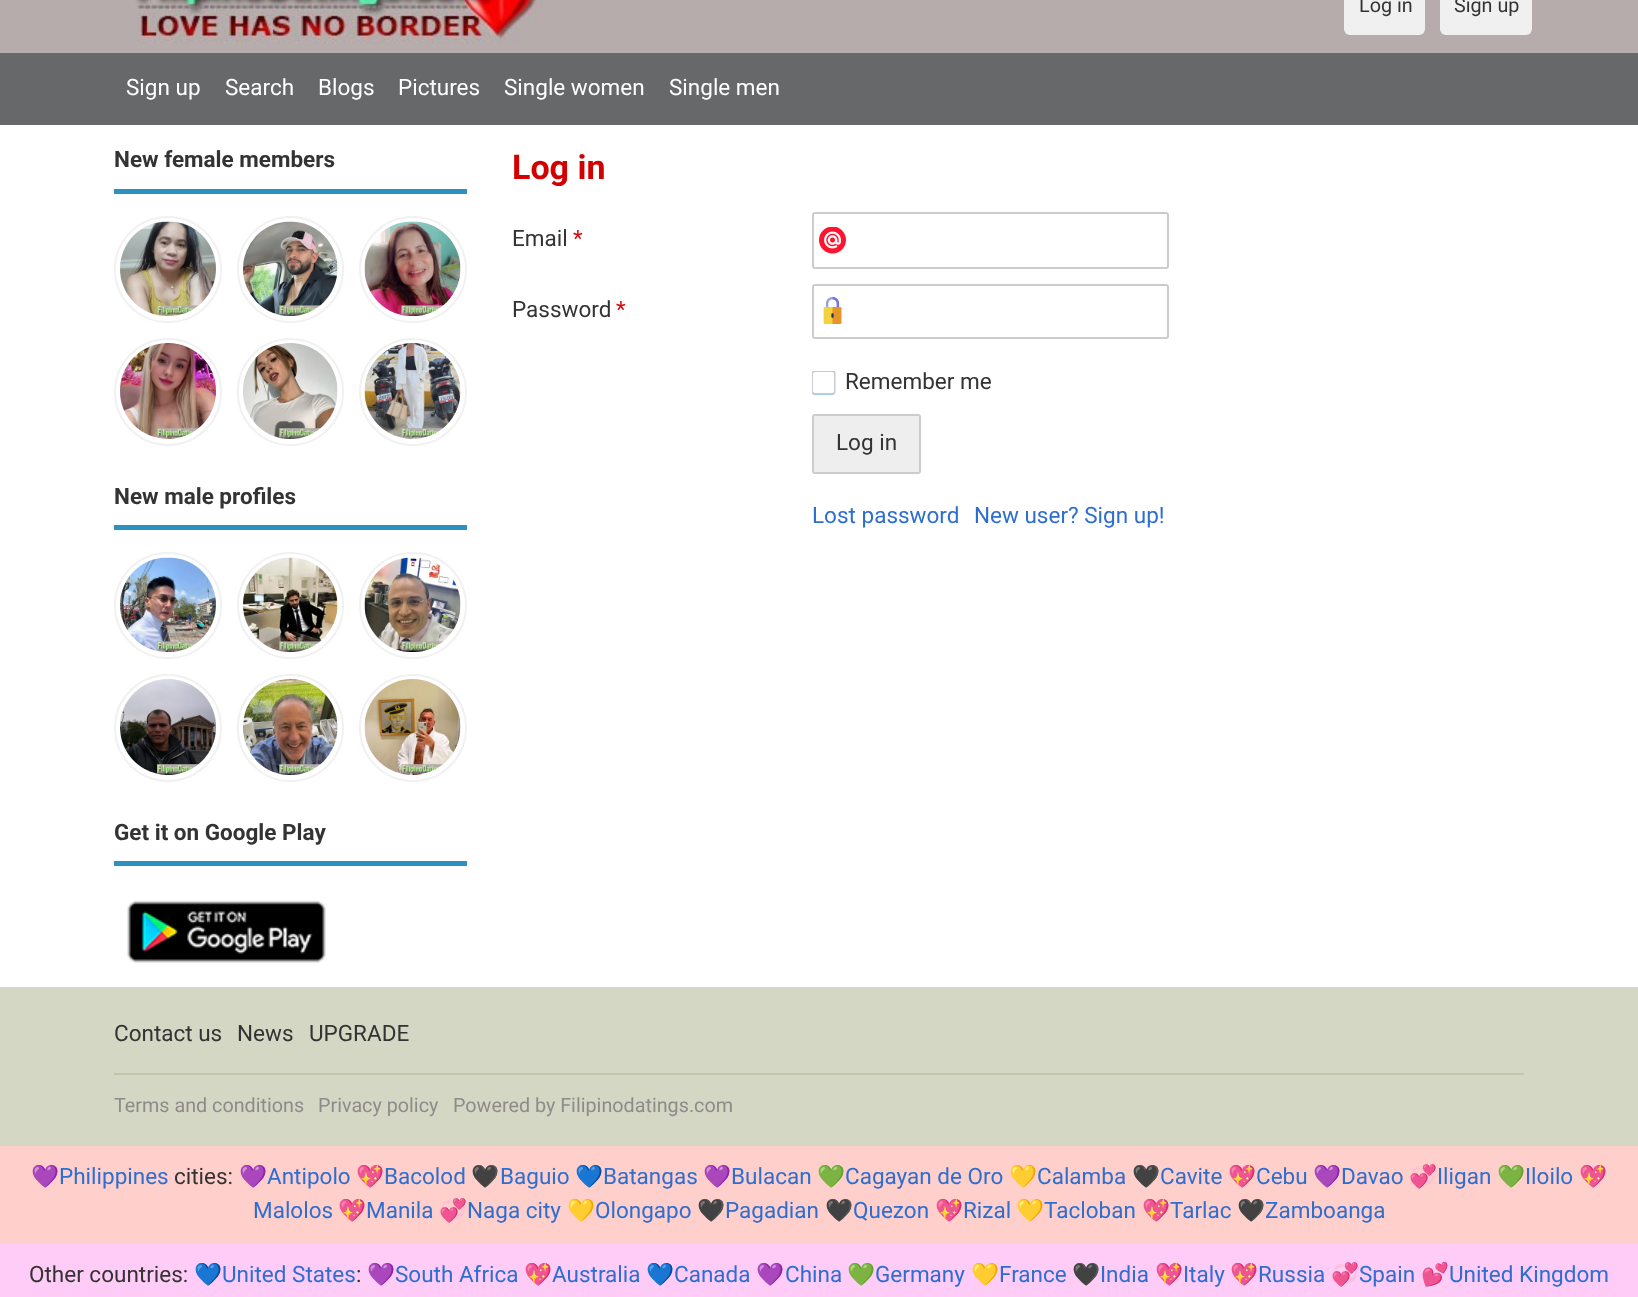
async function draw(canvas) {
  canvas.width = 1638;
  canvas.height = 1297;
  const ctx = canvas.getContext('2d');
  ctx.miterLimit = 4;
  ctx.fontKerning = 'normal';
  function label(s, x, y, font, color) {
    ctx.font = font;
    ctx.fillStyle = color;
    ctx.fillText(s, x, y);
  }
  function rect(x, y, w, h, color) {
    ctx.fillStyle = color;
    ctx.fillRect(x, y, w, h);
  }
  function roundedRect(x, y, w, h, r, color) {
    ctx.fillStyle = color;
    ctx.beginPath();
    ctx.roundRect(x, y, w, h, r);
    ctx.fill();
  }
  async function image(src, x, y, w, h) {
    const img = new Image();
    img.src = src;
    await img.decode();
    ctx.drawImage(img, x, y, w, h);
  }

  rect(0, 0, 1638, 1297, '#fff');
  rect(0, 0, 1638, 53, '#b7acac');
  await image('assets/img1.png', 135, 0, 411, 44);
  rect(0, 53, 1638, 72, '#66686a');
  roundedRect(1344, -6, 81, 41, 6, '#f0f0f0');
  label('Log in', 1359, 12, '19.75px Roboto', '#333');
  roundedRect(1440, -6, 92, 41, 6, '#f0f0f0');
  label('Sign up', 1454, 12, '19.75px Roboto', '#333');
  label('Sign up', 126, 95, '22.5px Roboto', '#fff');
  label('Search', 225, 95, '22.5px Roboto', '#fff');
  label('Blogs', 318, 95, '22.5px Roboto', '#fff');
  label('Pictures', 398, 95, '22.5px Roboto', '#fff');
  label('Single women', 504, 95, '22.5px Roboto', '#fff');
  label('Single men', 669, 95, '22.5px Roboto', '#fff');
  rect(114, 189, 353, 5, '#2d91c0');
  label('New female members', 114, 167, 'bold 22.5px Roboto', '#333');
  ctx.beginPath();
  ctx.roundRect(115, 217, 106, 105, 52.5);
  ctx.strokeStyle = '#f1f1f1';
  ctx.lineWidth = 2;
  ctx.stroke();
  await image('assets/img2.png', 120, 221, 96, 95);
  ctx.beginPath();
  ctx.arc(290.5, 269.5, 52.5, 0, 2 * Math.PI);
  ctx.stroke();
  await image('assets/img3.png', 243, 221, 95, 95);
  ctx.beginPath();
  ctx.roundRect(360, 217, 106, 105, 52.5);
  ctx.stroke();
  await image('assets/img4.png', 364, 221, 97, 95);
  ctx.beginPath();
  ctx.arc(168, 392, 53, 0, 2 * Math.PI);
  ctx.stroke();
  await image('assets/img5.png', 120, 343, 96, 96);
  ctx.beginPath();
  ctx.roundRect(238, 339, 105, 106, 52.5);
  ctx.stroke();
  await image('assets/img6.png', 243, 343, 95, 96);
  ctx.beginPath();
  ctx.arc(413, 392, 53, 0, 2 * Math.PI);
  ctx.stroke();
  await image('assets/img7.png', 364, 343, 97, 96);
  rect(114, 525, 353, 5, '#2d91c0');
  label('New male profiles', 114, 504, 'bold 22.5px Roboto', '#333');
  ctx.beginPath();
  ctx.roundRect(115, 553, 106, 105, 52.5);
  ctx.stroke();
  await image('assets/img8.png', 120, 557, 96, 95);
  ctx.beginPath();
  ctx.arc(290.5, 605.5, 52.5, 0, 2 * Math.PI);
  ctx.stroke();
  await image('assets/img9.png', 243, 557, 95, 95);
  ctx.beginPath();
  ctx.roundRect(360, 553, 106, 105, 52.5);
  ctx.stroke();
  await image('assets/img10.png', 364, 557, 97, 95);
  ctx.beginPath();
  ctx.arc(168, 728, 53, 0, 2 * Math.PI);
  ctx.stroke();
  await image('assets/img11.png', 120, 679, 96, 96);
  ctx.beginPath();
  ctx.roundRect(238, 675, 105, 106, 52.5);
  ctx.stroke();
  await image('assets/img12.png', 243, 679, 95, 96);
  ctx.beginPath();
  ctx.arc(413, 728, 53, 0, 2 * Math.PI);
  ctx.stroke();
  await image('assets/img13.png', 364, 679, 97, 96);
  rect(114, 861, 353, 5, '#2d91c0');
  label('Get it on Google Play', 114, 840, 'bold 22.5px Roboto', '#333');
  await image('assets/img14.png', 127, 900, 199, 63);
  label('Log in', 512, 179, 'bold 34px Roboto', '#d20000');
  label('Email', 512, 246, '22.5px Roboto', '#333');
  label('*', 573, 246, '22.5px Roboto', '#d00e12');
  await image('assets/img15.png', 819, 227, 27, 27);
  ctx.beginPath();
  ctx.roundRect(813, 213, 355, 55, 2);
  ctx.strokeStyle = '#ccc';
  ctx.stroke();
  label('Password', 512, 317, '22.5px Roboto', '#333');
  label('*', 616, 317, '22.5px Roboto', '#d00e12');
  await image('assets/img16.png', 823, 297, 19, 27);
  ctx.beginPath();
  ctx.roundRect(813, 285, 355, 53, 2);
  ctx.stroke();
  await image('assets/img17.png', 812, 371, 24, 24);
  label('Remember me', 845, 389, '22.5px Roboto', '#333');
  ctx.fillStyle = '#eee';
  ctx.beginPath();
  ctx.roundRect(813, 415, 107, 58, 2);
  ctx.fill();
  ctx.stroke();
  label('Log in', 836, 450, '22.5px Roboto', '#333');
  label('Lost password', 812, 523, '22.5px Roboto', '#2e6ecf');
  label('New user? Sign up!', 974, 523, '22.5px Roboto', '#2e6ecf');
  rect(0, 987, 1638, 159, '#d3d7c4');
  label('Contact us', 114, 1041, '22.5px Roboto', '#333');
  label('News', 237, 1041, '22.5px Roboto', '#333');
  label('UPGRADE', 309, 1041, '22.5px Roboto', '#333');
  rect(114, 1073, 1410, 2, '#c1c7ac');
  label('Terms and conditions', 114, 1112, '19.75px Roboto', '#908b8b');
  label('Privacy policy', 318, 1112, '19.75px Roboto', '#908b8b');
  label('Powered by Filipinodatings.com', 453, 1112, '19.75px Roboto', '#908b8b');
  rect(0, 1146, 1638, 98, '#ffcfcc');
  label('💜', 31, 1184, '22.5px Noto Color Emoji', '#333');
  label('Philippines', 59, 1184, '22.5px Roboto', '#2e6ecf');
  label('cities:', 174, 1184, '22.5px Roboto', '#333');
  label('💜', 239, 1184, '22.5px Noto Color Emoji', '#333');
  label('Antipolo', 267, 1184, '22.5px Roboto', '#2e6ecf');
  label('💖', 356, 1184, '22.5px Noto Color Emoji', '#333');
  label('Bacolod', 384, 1184, '22.5px Roboto', '#2e6ecf');
  label('🖤', 471, 1184, '22.5px Noto Color Emoji', '#333');
  label('Baguio', 500, 1184, '22.5px Roboto', '#2e6ecf');
  label('💙', 575, 1184, '22.5px Noto Color Emoji', '#333');
  label('Batangas', 603, 1184, '22.5px Roboto', '#2e6ecf');
  label('💜', 703, 1184, '22.5px Noto Color Emoji', '#333');
  label('Bulacan', 731, 1184, '22.5px Roboto', '#2e6ecf');
  label('💚', 817, 1184, '22.5px Noto Color Emoji', '#333');
  label('Cagayan de Oro', 845, 1184, '22.5px Roboto', '#2e6ecf');
  label('💛', 1009, 1184, '22.5px Noto Color Emoji', '#333');
  label('Calamba', 1037, 1184, '22.5px Roboto', '#2e6ecf');
  label('🖤', 1132, 1184, '22.5px Noto Color Emoji', '#333');
  label('Cavite', 1160, 1184, '22.5px Roboto', '#2e6ecf');
  label('💖', 1228, 1184, '22.5px Noto Color Emoji', '#333');
  label('Cebu', 1256, 1184, '22.5px Roboto', '#2e6ecf');
  label('💜', 1313, 1184, '22.5px Noto Color Emoji', '#333');
  label('Davao', 1341, 1184, '22.5px Roboto', '#2e6ecf');
  label('💞', 1409, 1184, '22.5px Noto Color Emoji', '#333');
  label('Iligan', 1437, 1184, '22.5px Roboto', '#2e6ecf');
  label('💚', 1497, 1184, '22.5px Noto Color Emoji', '#333');
  label('Iloilo', 1525, 1184, '22.5px Roboto', '#2e6ecf');
  label('💖', 1579, 1184, '22.5px Noto Color Emoji', '#333');
  label('Malolos', 253, 1218, '22.5px Roboto', '#2e6ecf');
  label('💖', 338, 1218, '22.5px Noto Color Emoji', '#333');
  label('Manila', 366, 1218, '22.5px Roboto', '#2e6ecf');
  label('💞', 439, 1218, '22.5px Noto Color Emoji', '#333');
  label('Naga city', 467, 1218, '22.5px Roboto', '#2e6ecf');
  label('💛', 567, 1218, '22.5px Noto Color Emoji', '#333');
  label('Olongapo', 595, 1218, '22.5px Roboto', '#2e6ecf');
  label('🖤', 697, 1218, '22.5px Noto Color Emoji', '#333');
  label('Pagadian', 725, 1218, '22.5px Roboto', '#2e6ecf');
  label('🖤', 825, 1218, '22.5px Noto Color Emoji', '#333');
  label('Quezon', 853, 1218, '22.5px Roboto', '#2e6ecf');
  label('💖', 935, 1218, '22.5px Noto Color Emoji', '#333');
  label('Rizal', 963, 1218, '22.5px Roboto', '#2e6ecf');
  label('💛', 1016, 1218, '22.5px Noto Color Emoji', '#333');
  label('Tacloban', 1044, 1218, '22.5px Roboto', '#2e6ecf');
  label('💖', 1142, 1218, '22.5px Noto Color Emoji', '#333');
  label('Tarlac', 1170, 1218, '22.5px Roboto', '#2e6ecf');
  label('🖤', 1237, 1218, '22.5px Noto Color Emoji', '#333');
  label('Zamboanga', 1265, 1218, '22.5px Roboto', '#2e6ecf');
  rect(0, 1244, 1638, 53, '#ffccf8');
  label('Other countries:', 29, 1282, '22.5px Roboto', '#333');
  label('💙', 194, 1282, '22.5px Noto Color Emoji', '#333');
  label('United States', 222, 1282, '22.5px Roboto', '#2e6ecf');
  label(':', 356, 1282, '22.5px Roboto', '#333');
  label('💜', 367, 1282, '22.5px Noto Color Emoji', '#333');
  label('South Africa', 395, 1282, '22.5px Roboto', '#2e6ecf');
  label('💖', 524, 1282, '22.5px Noto Color Emoji', '#333');
  label('Australia', 552, 1282, '22.5px Roboto', '#2e6ecf');
  label('💙', 646, 1282, '22.5px Noto Color Emoji', '#333');
  label('Canada', 674, 1282, '22.5px Roboto', '#2e6ecf');
  label('💜', 756, 1282, '22.5px Noto Color Emoji', '#333');
  label('China', 785, 1282, '22.5px Roboto', '#2e6ecf');
  label('💚', 847, 1282, '22.5px Noto Color Emoji', '#333');
  label('Germany', 875, 1282, '22.5px Roboto', '#2e6ecf');
  label('💛', 971, 1282, '22.5px Noto Color Emoji', '#333');
  label('France', 999, 1282, '22.5px Roboto', '#2e6ecf');
  label('🖤', 1072, 1282, '22.5px Noto Color Emoji', '#333');
  label('India', 1100, 1282, '22.5px Roboto', '#2e6ecf');
  label('💖', 1155, 1282, '22.5px Noto Color Emoji', '#333');
  label('Italy', 1183, 1282, '22.5px Roboto', '#2e6ecf');
  label('💖', 1230, 1282, '22.5px Noto Color Emoji', '#333');
  label('Russia', 1258, 1282, '22.5px Roboto', '#2e6ecf');
  label('💞', 1331, 1282, '22.5px Noto Color Emoji', '#333');
  label('Spain', 1359, 1282, '22.5px Roboto', '#2e6ecf');
  label('💕', 1421, 1282, '22.5px Noto Color Emoji', '#333');
  label('United Kingdom', 1449, 1282, '22.5px Roboto', '#2e6ecf');
}

draw(document.querySelector('canvas'));
